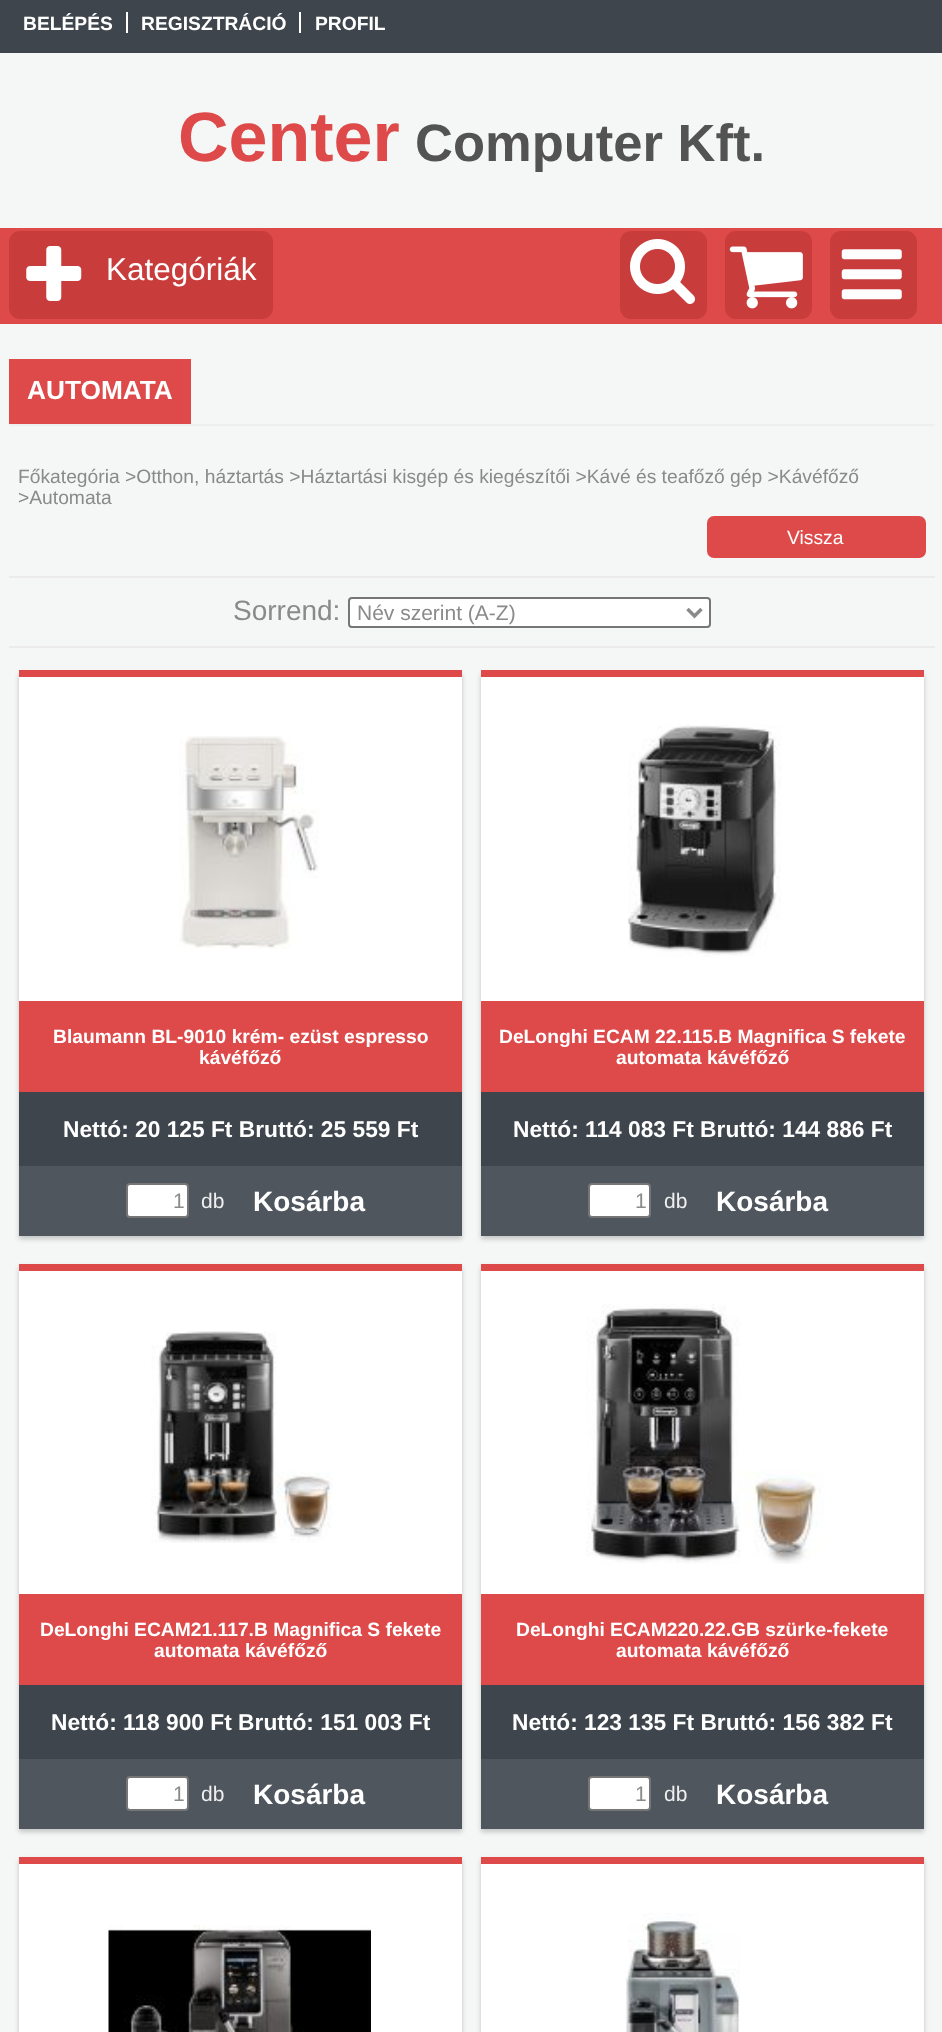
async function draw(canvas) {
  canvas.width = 942;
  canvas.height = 2032;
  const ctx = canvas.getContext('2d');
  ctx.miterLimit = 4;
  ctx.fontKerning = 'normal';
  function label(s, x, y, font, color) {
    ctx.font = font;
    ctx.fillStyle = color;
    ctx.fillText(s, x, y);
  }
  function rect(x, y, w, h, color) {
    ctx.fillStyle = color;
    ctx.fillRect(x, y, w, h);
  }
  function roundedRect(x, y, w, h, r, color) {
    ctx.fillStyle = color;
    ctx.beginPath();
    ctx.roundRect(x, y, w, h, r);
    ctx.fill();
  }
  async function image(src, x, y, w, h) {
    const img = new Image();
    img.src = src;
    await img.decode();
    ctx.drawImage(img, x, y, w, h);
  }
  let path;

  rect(0, 0, 942, 2032, '#f5f6f6');
  rect(0, 0, 942, 53, '#3e454c');
  label('BELÉPÉS', 23, 30, 'bold 19.25px Liberation Sans', '#fff');
  rect(126, 12, 2, 21, '#fff');
  label('REGISZTRÁCIÓ', 141, 30, 'bold 19.25px Liberation Sans', '#fff');
  rect(299, 12, 2, 21, '#fff');
  label('PROFIL', 315, 30, 'bold 19.25px Liberation Sans', '#fff');
  label('Center', 178, 161, 'bold 70px Liberation Sans', '#de4a4a');
  label('Computer Kft.', 415, 161, 'bold 52.5px Liberation Sans', '#535353');
  rect(0, 228, 942, 96, '#de4a4a');
  roundedRect(9, 231, 264, 88, 11, '#c83c3c');
  await image('assets/img1.png', 26, 246, 56, 55);
  label('Kategóriák', 106, 280, '31.5px Liberation Sans', '#fff');
  roundedRect(620, 231, 87, 88, 11, '#c83c3c');
  await image('assets/img2.png', 630, 239, 65, 65);
  roundedRect(725, 231, 87, 88, 11, '#c83c3c');
  await image('assets/img3.png', 729, 246, 74, 63);
  roundedRect(830, 231, 87, 88, 11, '#c83c3c');
  await image('assets/img4.png', 841, 249, 61, 51);
  rect(9, 424, 926, 2, '#efefef');
  rect(9, 359, 182, 65, '#de4a4a');
  label('AUTOMATA', 27, 399, 'bold 26.25px Liberation Sans', '#fff');
  label('Főkategória >Otthon, háztartás >Háztartási kisgép és kiegészítői >Kávé és teafőző gép >Kávéfőző', 18, 483, '19.25px Liberation Sans', '#8b8a8a');
  label('>Automata', 18, 504, '19.25px Liberation Sans', '#8b8a8a');
  roundedRect(707, 516, 219, 42, 7, '#de4a4a');
  label('Vissza', 787, 544, '19.25px Liberation Sans', '#fff');
  rect(9, 576, 926, 2, '#eceaea');
  label('Sorrend:', 233, 620, '28px Liberation Sans', '#8b8a8a');
  ctx.fillStyle = '#fff';
  ctx.beginPath();
  ctx.roundRect(349, 598, 361, 29, 3);
  ctx.fill();
  ctx.strokeStyle = '#767676';
  ctx.lineWidth = 2;
  ctx.stroke();
  path = new Path2D('M687.5 609L694.5 616L701.5 609');
  ctx.strokeStyle = '#8b8a8a';
  ctx.lineWidth = 3.5;
  ctx.stroke(path);
  label('Név szerint (A-Z)', 357, 620, '21px Liberation Sans', '#8b8a8a');
  rect(9, 646, 926, 2, '#eceaea');
  ctx.fillStyle = '#00000033';
  ctx.filter = 'blur(2.5px)';
  ctx.beginPath();
  ctx.rect(19, 674, 443, 565);
  ctx.fill();
  ctx.filter = 'none';
  rect(19, 670, 443, 7, '#de4a4a');
  rect(19, 677, 443, 324, '#fff');
  await image('assets/img5.png', 179, 736, 140, 213);
  rect(19, 1001, 443, 91, '#de4a4a');
  label('Blaumann BL-9010 krém- ezüst espresso', 53, 1043, 'bold 19.25px Liberation Sans', '#fff');
  label('kávéfőző', 199, 1064, 'bold 19.25px Liberation Sans', '#fff');
  rect(19, 1092, 443, 74, '#3e454c');
  label('Nettó: 20 125 Ft Bruttó: 25 559 Ft', 63, 1137, 'bold 22.75px Liberation Sans', '#fff');
  rect(19, 1166, 443, 70, '#4f565e');
  ctx.fillStyle = '#fff';
  ctx.beginPath();
  ctx.roundRect(127, 1184, 61, 33, 3);
  ctx.fill();
  ctx.strokeStyle = '#767676';
  ctx.lineWidth = 2;
  ctx.stroke();
  label('1', 173, 1208, '21px Liberation Sans', '#8b8a8a');
  label('db', 201, 1208, '21px Liberation Sans', '#efefef');
  label('Kosárba', 253, 1211, 'bold 28px Liberation Sans', '#fff');
  ctx.fillStyle = '#00000033';
  ctx.filter = 'blur(2.5px)';
  ctx.beginPath();
  ctx.rect(481, 674, 443, 565);
  ctx.fill();
  ctx.filter = 'none';
  rect(481, 670, 443, 7, '#de4a4a');
  rect(481, 677, 443, 324, '#fff');
  await image('assets/img6.png', 628, 724, 154, 233);
  rect(481, 1001, 443, 91, '#de4a4a');
  label('DeLonghi ECAM 22.115.B Magnifica S fekete', 499, 1043, 'bold 19.25px Liberation Sans', '#fff');
  label('automata kávéfőző', 616, 1064, 'bold 19.25px Liberation Sans', '#fff');
  rect(481, 1092, 443, 74, '#3e454c');
  label('Nettó: 114 083 Ft Bruttó: 144 886 Ft', 513, 1137, 'bold 22.75px Liberation Sans', '#fff');
  rect(481, 1166, 443, 70, '#4f565e');
  ctx.fillStyle = '#fff';
  ctx.beginPath();
  ctx.roundRect(589, 1184, 61, 33, 3);
  ctx.fill();
  ctx.stroke();
  label('1', 635, 1208, '21px Liberation Sans', '#8b8a8a');
  label('db', 664, 1208, '21px Liberation Sans', '#efefef');
  label('Kosárba', 716, 1211, 'bold 28px Liberation Sans', '#fff');
  ctx.fillStyle = '#00000033';
  ctx.filter = 'blur(2.5px)';
  ctx.beginPath();
  ctx.rect(19, 1267, 443, 565);
  ctx.fill();
  ctx.filter = 'none';
  rect(19, 1264, 443, 7, '#de4a4a');
  rect(19, 1271, 443, 323, '#fff');
  await image('assets/img7.png', 151, 1331, 182, 212);
  rect(19, 1594, 443, 91, '#de4a4a');
  label('DeLonghi ECAM21.117.B Magnifica S fekete', 40, 1636, 'bold 19.25px Liberation Sans', '#fff');
  label('automata kávéfőző', 154, 1657, 'bold 19.25px Liberation Sans', '#fff');
  rect(19, 1685, 443, 74, '#3e454c');
  label('Nettó: 118 900 Ft Bruttó: 151 003 Ft', 51, 1730, 'bold 22.75px Liberation Sans', '#fff');
  rect(19, 1759, 443, 70, '#4f565e');
  ctx.fillStyle = '#fff';
  ctx.beginPath();
  ctx.roundRect(127, 1777, 61, 33, 3);
  ctx.fill();
  ctx.stroke();
  label('1', 173, 1801, '21px Liberation Sans', '#8b8a8a');
  label('db', 201, 1801, '21px Liberation Sans', '#efefef');
  label('Kosárba', 253, 1804, 'bold 28px Liberation Sans', '#fff');
  ctx.fillStyle = '#00000033';
  ctx.filter = 'blur(2.5px)';
  ctx.beginPath();
  ctx.rect(481, 1267, 443, 565);
  ctx.fill();
  ctx.filter = 'none';
  rect(481, 1264, 443, 7, '#de4a4a');
  rect(481, 1271, 443, 323, '#fff');
  await image('assets/img8.png', 586, 1304, 238, 260);
  rect(481, 1594, 443, 91, '#de4a4a');
  label('DeLonghi ECAM220.22.GB szürke-fekete', 516, 1636, 'bold 19.25px Liberation Sans', '#fff');
  label('automata kávéfőző', 616, 1657, 'bold 19.25px Liberation Sans', '#fff');
  rect(481, 1685, 443, 74, '#3e454c');
  label('Nettó: 123 135 Ft Bruttó: 156 382 Ft', 512, 1730, 'bold 22.75px Liberation Sans', '#fff');
  rect(481, 1759, 443, 70, '#4f565e');
  ctx.fillStyle = '#fff';
  ctx.beginPath();
  ctx.roundRect(589, 1777, 61, 33, 3);
  ctx.fill();
  ctx.stroke();
  label('1', 635, 1801, '21px Liberation Sans', '#8b8a8a');
  label('db', 664, 1801, '21px Liberation Sans', '#efefef');
  label('Kosárba', 716, 1804, 'bold 28px Liberation Sans', '#fff');
  ctx.fillStyle = '#00000033';
  ctx.filter = 'blur(2.5px)';
  ctx.beginPath();
  ctx.rect(19, 1860, 443, 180);
  ctx.fill();
  ctx.filter = 'none';
  rect(19, 1857, 443, 7, '#de4a4a');
  rect(19, 1864, 443, 168, '#fff');
  await image('assets/img9.png', 108, 1925, 263, 107);
  ctx.fillStyle = '#00000033';
  ctx.filter = 'blur(2.5px)';
  ctx.beginPath();
  ctx.rect(481, 1860, 443, 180);
  ctx.fill();
  ctx.filter = 'none';
  rect(481, 1857, 443, 7, '#de4a4a');
  rect(481, 1864, 443, 168, '#fff');
  await image('assets/img10.png', 625, 1913, 115, 119);
}

draw(document.querySelector('canvas'));
